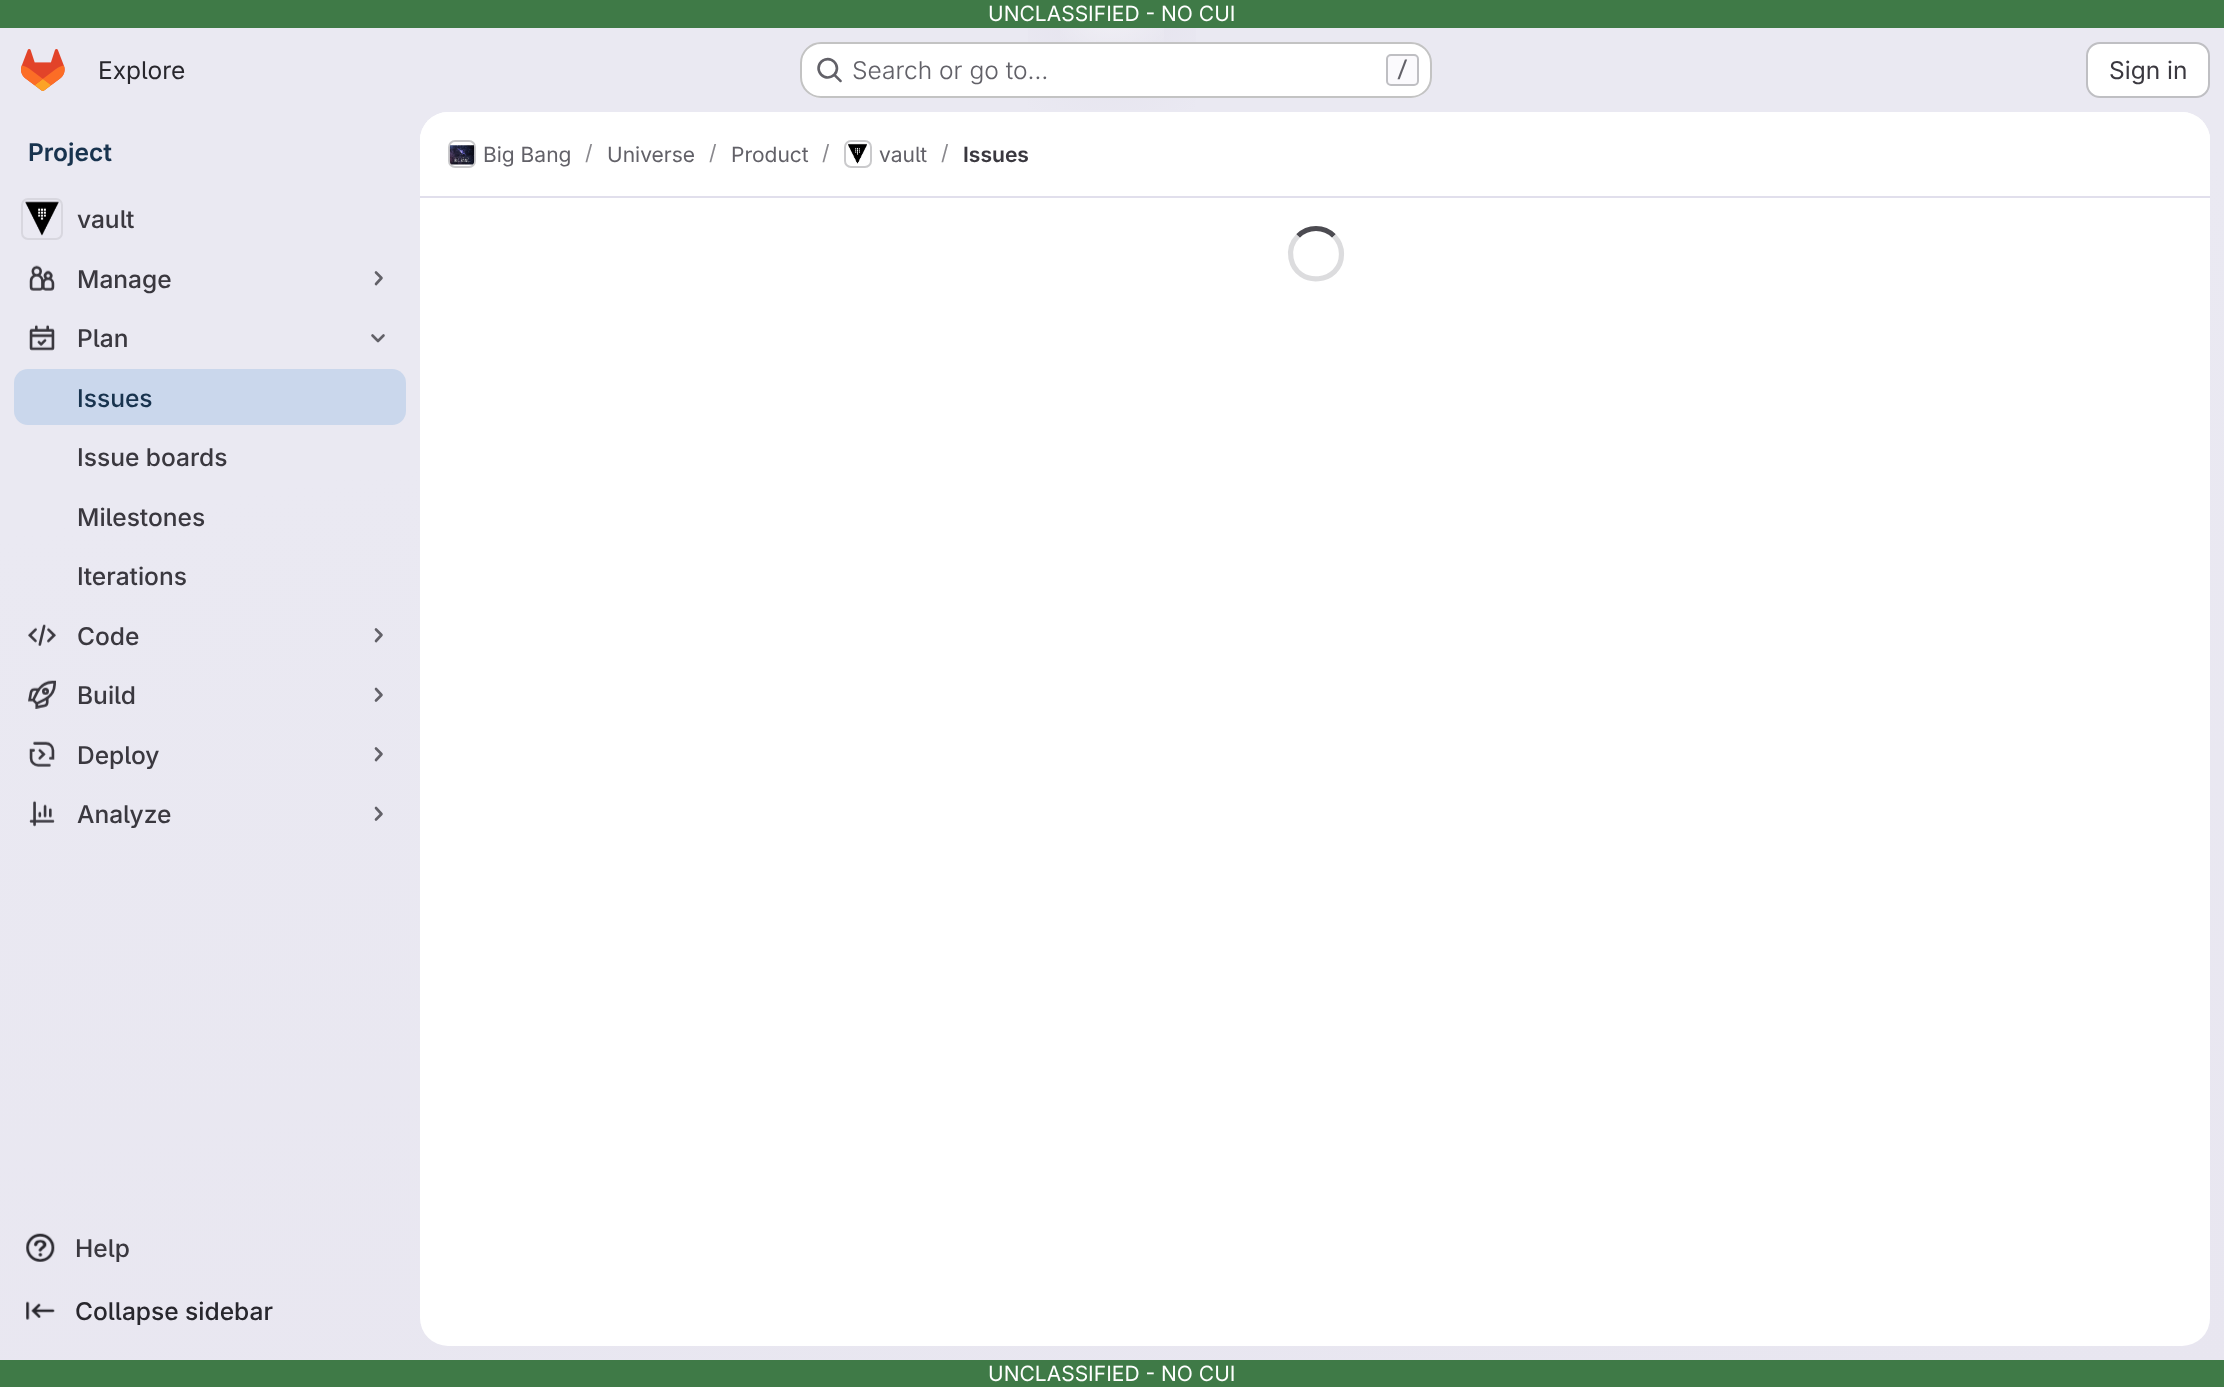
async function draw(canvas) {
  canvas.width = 2224;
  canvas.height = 1387;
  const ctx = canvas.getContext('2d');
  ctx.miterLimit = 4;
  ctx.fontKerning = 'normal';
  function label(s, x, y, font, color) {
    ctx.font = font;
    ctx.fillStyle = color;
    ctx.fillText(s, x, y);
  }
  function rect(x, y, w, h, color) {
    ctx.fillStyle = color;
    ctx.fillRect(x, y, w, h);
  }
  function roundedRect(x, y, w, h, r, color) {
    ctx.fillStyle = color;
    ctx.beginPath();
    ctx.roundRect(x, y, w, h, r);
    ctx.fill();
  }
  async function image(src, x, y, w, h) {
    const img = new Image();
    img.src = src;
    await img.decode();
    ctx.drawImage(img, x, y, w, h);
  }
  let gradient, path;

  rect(0, 0, 2224, 1387, '#fff');
  gradient = ctx.createLinearGradient(1264, 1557, 960, -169);
  gradient.addColorStop(0, '#e8e6f0');
  gradient.addColorStop(0.7, '#eae9f2');
  ctx.fillStyle = gradient;
  ctx.fillRect(0, 28, 2224, 1332);
  gradient = ctx.createRadialGradient(1112, 0, 0, 1112, 0, 1112);
  gradient.addColorStop(0, '#e4e2ed');
  gradient.addColorStop(0.11, '#e4e2ed00');
  ctx.fillStyle = gradient;
  ctx.beginPath();
  ctx.rect(1028, 28, 168, 82);
  ctx.save();
  ctx.clip();
  ctx.scale(1, 1388 / 1112);
  ctx.fillRect(0, 0, 2224, 1112);
  ctx.restore();
  gradient = ctx.createRadialGradient(1112, 0, 0, 1112, 0, 1112);
  gradient.addColorStop(0, '#e4e2ec');
  gradient.addColorStop(0.08, '#e4e2ec00');
  ctx.fillStyle = gradient;
  ctx.beginPath();
  ctx.rect(1096, 41, 32, 5);
  ctx.save();
  ctx.clip();
  ctx.scale(1, 1388 / 1112);
  ctx.fillRect(0, 0, 2224, 1112);
  ctx.restore();
  gradient = ctx.createRadialGradient(1112, 0, 0, 1112, 0, 1778);
  gradient.addColorStop(0, '#ffffff99');
  gradient.addColorStop(0.04, '#ffffff00');
  ctx.fillStyle = gradient;
  ctx.fillRect(1060, 28, 104, 14);
  rect(0, 0, 2224, 28, '#3f7a47');
  label('UNCLASSIFIED - NO CUI', 988, 21, '21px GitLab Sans', '#fff');
  await image('assets/img1.png', 21, 49, 44, 42);
  label('Explore', 98, 79, '24.5px GitLab Sans', '#28272d');
  roundedRect(800, 42, 632, 56, 21, '#fff');
  ctx.beginPath();
  ctx.roundRect(801, 43, 630, 54, 20);
  ctx.strokeStyle = '#0505063d';
  ctx.lineWidth = 2;
  ctx.stroke();
  await image('assets/img2.png', 817, 57, 25, 26);
  label('Search or go to…', 852, 79, '300 24.5px GitLab Sans', '#626168');
  ctx.fillStyle = '#fbfafd';
  ctx.beginPath();
  ctx.roundRect(1387, 55, 31, 30, 4);
  ctx.fill();
  ctx.strokeStyle = '#bfbfc3';
  ctx.stroke();
  label('/', 1396, 77, '500 21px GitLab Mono', '#626168');
  ctx.fillStyle = '#fff';
  ctx.beginPath();
  ctx.roundRect(2087, 43, 122, 54, 13);
  ctx.fill();
  ctx.stroke();
  label('Sign in', 2109, 79, '24.5px GitLab Sans', '#3a383f');
  label('Project', 28, 161, '600 24.5px GitLab Sans', '#18334e');
  await image('assets/img3.png', 25, 201, 34, 35);
  ctx.beginPath();
  ctx.roundRect(22, 199, 40, 40, 6);
  ctx.strokeStyle = '#d8d7df';
  ctx.stroke();
  label('vault', 77, 228, '500 24.5px GitLab Sans', '#3a383f');
  await image('assets/img4.png', 29, 265, 26, 26);
  label('Manage', 77, 288, '500 24.5px GitLab Sans', '#3a383f');
  path = new Path2D('M376 272.5L381.5 278L376 284');
  ctx.strokeStyle = '#626168';
  ctx.lineWidth = 2.6;
  ctx.lineCap = 'round';
  ctx.lineJoin = 'round';
  ctx.stroke(path);
  await image('assets/img5.png', 29, 324, 26, 27);
  label('Plan', 77, 347, '500 24.5px GitLab Sans', '#3a383f');
  path = new Path2D('M383.5 335.5L378 341L372.5 335.5');
  ctx.stroke(path);
  roundedRect(14, 369, 392, 56, 14, '#cad7ec');
  label('Issues', 77, 407, '500 24.5px GitLab Sans', '#18334e');
  label('Issue boards', 77, 466, '500 24.5px GitLab Sans', '#3a383f');
  label('Milestones', 77, 526, '500 24.5px GitLab Sans', '#3a383f');
  label('Iterations', 77, 585, '500 24.5px GitLab Sans', '#3a383f');
  await image('assets/img6.png', 28, 624, 28, 22);
  label('Code', 77, 645, '500 24.5px GitLab Sans', '#3a383f');
  path = new Path2D('M376 629.5L381.5 635L376 641');
  ctx.stroke(path);
  await image('assets/img7.png', 28, 680, 28, 29);
  label('Build', 77, 704, '500 24.5px GitLab Sans', '#3a383f');
  path = new Path2D('M376 689L381.5 695L376 700.5');
  ctx.stroke(path);
  await image('assets/img8.png', 29, 741, 26, 26);
  label('Deploy', 77, 764, '500 24.5px GitLab Sans', '#3a383f');
  path = new Path2D('M376 748.5L381.5 754L376 760');
  ctx.stroke(path);
  await image('assets/img9.png', 29, 800, 26, 27);
  label('Analyze', 77, 823, '500 24.5px GitLab Sans', '#3a383f');
  path = new Path2D('M376 808L381.5 814L376 819.5');
  ctx.stroke(path);
  await image('assets/img10.png', 26, 1233, 29, 29);
  label('Help', 75, 1257, '500 24.5px GitLab Sans', '#3a383f');
  await image('assets/img11.png', 26, 1301, 29, 19);
  label('Collapse sidebar', 75, 1320, '500 24.5px GitLab Sans', '#28272d');
  roundedRect(420, 112, 1790, 1234, 28, '#fff');
  ctx.beginPath();
  ctx.roundRect(420, 112, 1790, 86, [28, 28, 0, 0]);
  ctx.fill();
  rect(420, 196, 1790, 2, '#e1dfec');
  ctx.beginPath();
  ctx.roundRect(449, 141, 26, 26, 6);
  ctx.strokeStyle = '#dcdcde';
  ctx.lineWidth = 2;
  ctx.lineJoin = 'miter';
  ctx.stroke();
  await image('assets/img12.png', 449, 145, 26, 20);
  ctx.beginPath();
  ctx.roundRect(449, 141, 26, 26, 6);
  ctx.strokeStyle = '#05050614';
  ctx.stroke();
  label('Big Bang', 483, 162, '21px GitLab Sans', '#626168');
  label('/', 585, 160, '21px GitLab Sans', '#89888d');
  label('Universe', 607, 162, '21px GitLab Sans', '#626168');
  label('/', 709, 160, '21px GitLab Sans', '#89888d');
  label('Product', 731, 162, '21px GitLab Sans', '#626168');
  label('/', 822, 160, '21px GitLab Sans', '#89888d');
  ctx.beginPath();
  ctx.roundRect(845, 141, 26, 26, 6);
  ctx.strokeStyle = '#dcdcde';
  ctx.stroke();
  await image('assets/img13.png', 848, 143, 19, 21);
  ctx.beginPath();
  ctx.roundRect(845, 141, 26, 26, 6);
  ctx.strokeStyle = '#05050614';
  ctx.stroke();
  label('vault', 879, 162, '21px GitLab Sans', '#626168');
  label('/', 941, 160, '21px GitLab Sans', '#89888d');
  label('Issues', 963, 162, '600 21px GitLab Sans', '#3a383f');
  path = new Path2D('M1298 236C1308 226 1324 226 1334 236');
  ctx.strokeStyle = '#4c4b51';
  ctx.lineWidth = 5.2;
  ctx.lineCap = 'butt';
  ctx.stroke(path);
  path = new Path2D('M1334 236C1338.5 240.5 1341.5 247 1341.5 254C1341.5 284 1297 288.5 1291 258.5C1289.5 250.5 1292 242 1298 236');
  ctx.strokeStyle = '#dcdcde';
  ctx.stroke(path);
  rect(0, 1360, 2224, 27, '#3f7a47');
  label('UNCLASSIFIED - NO CUI', 988, 1381, '21px GitLab Sans', '#fff');
}

draw(document.querySelector('canvas'));
